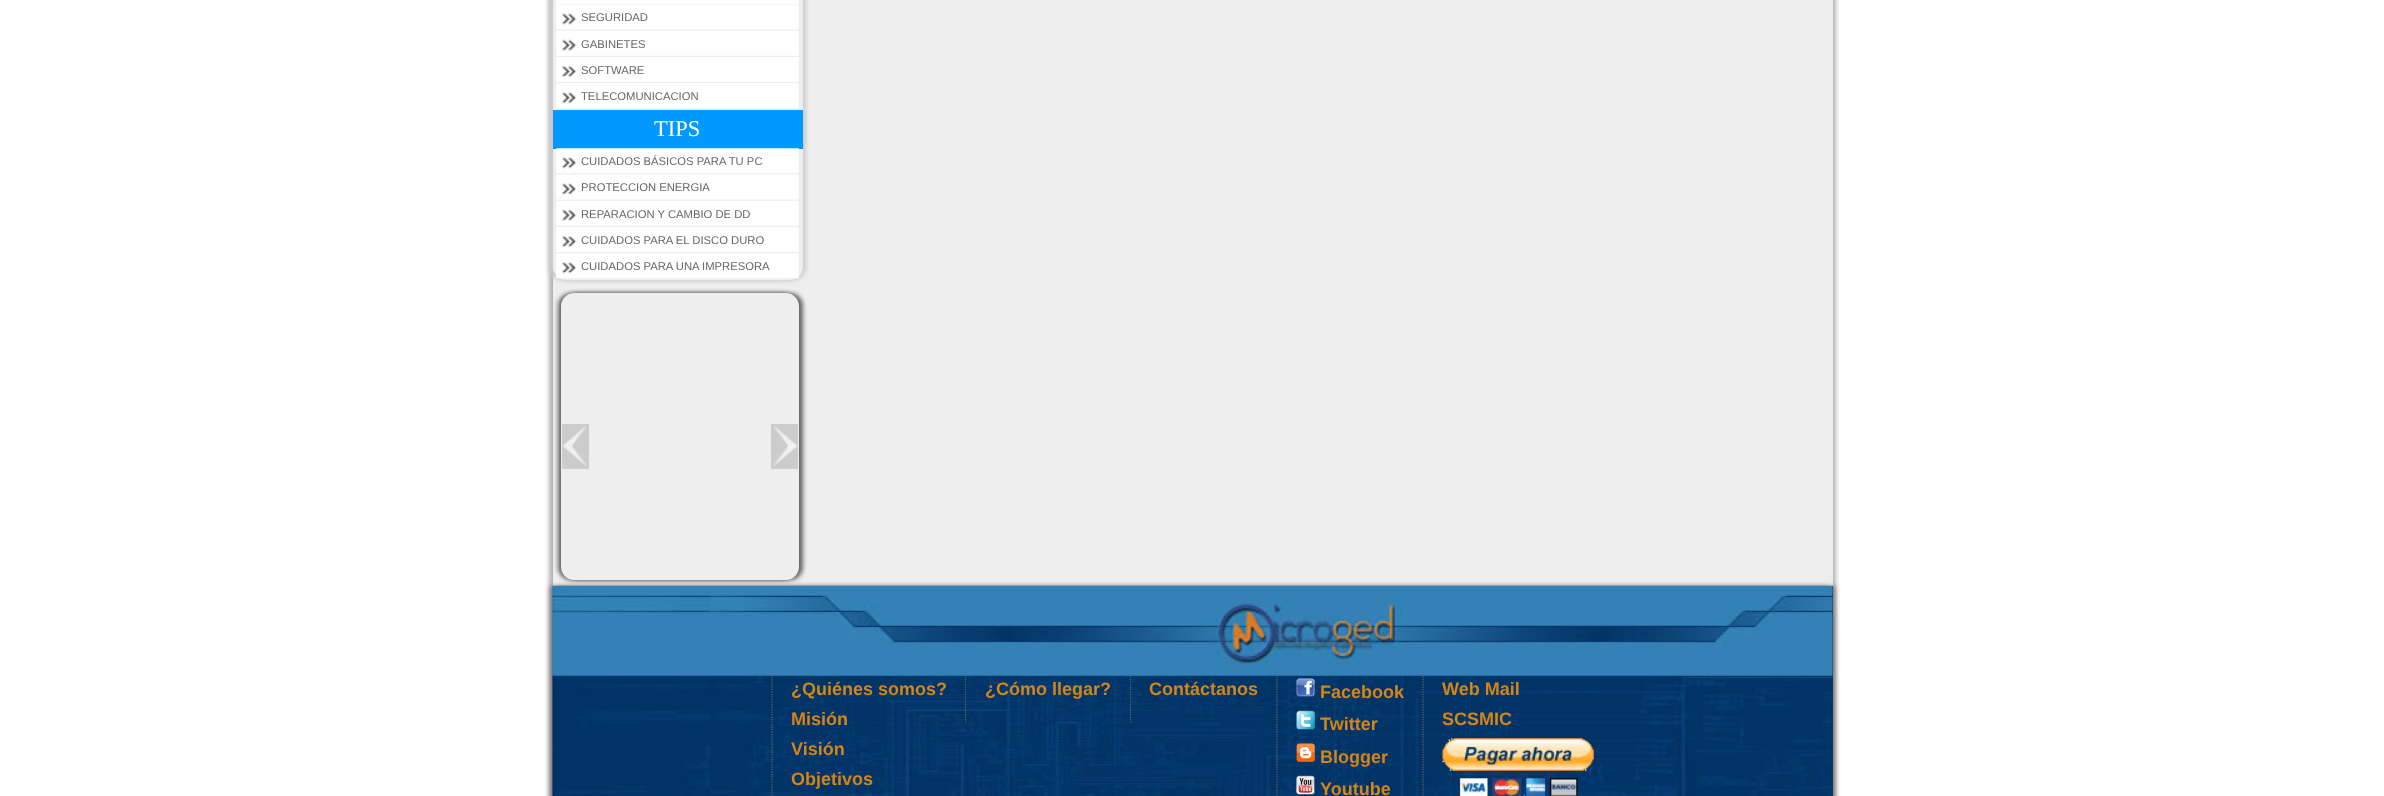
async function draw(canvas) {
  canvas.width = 2384;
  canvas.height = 796;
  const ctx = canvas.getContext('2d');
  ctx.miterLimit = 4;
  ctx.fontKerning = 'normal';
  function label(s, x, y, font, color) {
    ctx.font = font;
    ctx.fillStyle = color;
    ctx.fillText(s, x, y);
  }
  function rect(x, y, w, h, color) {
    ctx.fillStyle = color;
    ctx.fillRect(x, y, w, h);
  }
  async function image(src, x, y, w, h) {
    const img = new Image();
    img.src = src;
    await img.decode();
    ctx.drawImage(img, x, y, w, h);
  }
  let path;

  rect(0, 0, 2384, 796, '#fff');
  ctx.fillStyle = '#0000004d';
  ctx.filter = 'blur(2px)';
  ctx.beginPath();
  ctx.rect(549, -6, 1280, 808);
  ctx.fill();
  ctx.filter = 'none';
  ctx.filter = 'blur(2px)';
  ctx.beginPath();
  ctx.rect(556, -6, 1280, 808);
  ctx.fill();
  ctx.filter = 'none';
  rect(553, 0, 1280, 586, '#eee');
  ctx.save();
  path = new Path2D('M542 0H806V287H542ZM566-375H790C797-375 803-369 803-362V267C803 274 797 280 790 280H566C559 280 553 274 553 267V-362C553-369 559-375 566-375Z');
  ctx.clip(path, 'evenodd');
  ctx.fillStyle = '#ccc';
  ctx.filter = 'blur(2px)';
  ctx.beginPath();
  ctx.roundRect(549, -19, 250, 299, 13);
  ctx.fill();
  ctx.filter = 'none';
  ctx.restore();
  ctx.save();
  path = new Path2D('M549 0H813V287H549ZM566-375H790C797-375 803-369 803-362V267C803 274 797 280 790 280H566C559 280 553 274 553 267V-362C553-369 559-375 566-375Z');
  ctx.clip(path, 'evenodd');
  ctx.fillStyle = '#ccc';
  ctx.filter = 'blur(2px)';
  ctx.beginPath();
  ctx.roundRect(556, -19, 250, 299, 13);
  ctx.fill();
  ctx.filter = 'none';
  ctx.restore();
  rect(556, 0, 243, 4, '#fff');
  await image('assets/img1.png', 556, 4, 243, 26);
  label('SEGURIDAD', 581, 21, '11.25px Liberation Sans', '#666');
  await image('assets/img2.png', 556, 30, 243, 26);
  label('GABINETES', 581, 48, '11.25px Liberation Sans', '#666');
  await image('assets/img3.png', 556, 57, 243, 25);
  label('SOFTWARE', 581, 74, '11.25px Liberation Sans', '#666');
  await image('assets/img4.png', 556, 83, 243, 26);
  label('TELECOMUNICACION', 581, 100, '11.25px Liberation Sans', '#666');
  rect(553, 110, 250, 39, '#09f');
  label('TIPS', 654, 136, '22.5px Liberation Serif', '#fff');
  await image('assets/img5.png', 556, 148, 243, 26);
  label('CUIDADOS BÁSICOS PARA TU PC', 581, 165, '11.25px Liberation Sans', '#666');
  await image('assets/img1.png', 556, 174, 243, 26);
  label('PROTECCION ENERGIA', 581, 191, '11.25px Liberation Sans', '#666');
  await image('assets/img2.png', 556, 200, 243, 26);
  label('REPARACION Y CAMBIO DE DD', 581, 218, '11.25px Liberation Sans', '#666');
  await image('assets/img3.png', 556, 227, 243, 25);
  label('CUIDADOS PARA EL DISCO DURO', 581, 244, '11.25px Liberation Sans', '#666');
  await image('assets/img6.png', 556, 253, 243, 26);
  label('CUIDADOS PARA UNA IMPRESORA', 581, 270, '11.25px Liberation Sans', '#666');
  ctx.save();
  path = new Path2D('M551 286H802V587H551ZM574 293H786C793 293 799 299 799 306V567C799 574 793 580 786 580H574C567 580 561 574 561 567V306C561 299 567 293 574 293Z');
  ctx.clip(path, 'evenodd');
  ctx.filter = 'blur(2px)';
  ctx.beginPath();
  ctx.roundRect(558, 293, 237, 287, 13);
  ctx.fill();
  ctx.filter = 'none';
  ctx.restore();
  ctx.save();
  path = new Path2D('M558 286H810V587H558ZM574 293H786C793 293 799 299 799 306V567C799 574 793 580 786 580H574C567 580 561 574 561 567V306C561 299 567 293 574 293Z');
  ctx.clip(path, 'evenodd');
  ctx.filter = 'blur(2px)';
  ctx.beginPath();
  ctx.roundRect(565, 293, 238, 287, 13);
  ctx.fill();
  ctx.filter = 'none';
  ctx.restore();
  rect(562, 424, 27, 45, '#ccc');
  await image('assets/img7.png', 562, 425, 25, 42);
  rect(771, 424, 27, 45, '#ccc');
  await image('assets/img8.png', 773, 425, 25, 42);
  ctx.fillStyle = '#0000004d';
  ctx.filter = 'blur(2px)';
  ctx.beginPath();
  ctx.rect(549, 586, 1280, 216);
  ctx.fill();
  ctx.filter = 'none';
  ctx.filter = 'blur(2px)';
  ctx.beginPath();
  ctx.rect(556, 586, 1280, 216);
  ctx.fill();
  ctx.filter = 'none';
  rect(1832, 586, 1, 210, '#333');
  await image('assets/img9.png', 552, 585, 1281, 211);
  path = new Path2D('M772 674V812.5');
  ctx.strokeStyle = '#666';
  ctx.lineWidth = 1.2;
  ctx.setLineDash([1.25, 1.25]);
  ctx.stroke(path);
  label('¿Quiénes somos?', 791, 695, 'bold 18px Liberation Sans', '#d58516');
  label('Misión', 791, 725, 'bold 18px Liberation Sans', '#d58516');
  label('Visión', 791, 755, 'bold 18px Liberation Sans', '#d58516');
  label('Objetivos', 791, 785, 'bold 18px Liberation Sans', '#d58516');
  path = new Path2D('M965.5 674V722.5');
  ctx.stroke(path);
  label('¿Cómo llegar?', 985, 695, 'bold 18px Liberation Sans', '#d58516');
  path = new Path2D('M1130.5 674V722.5');
  ctx.stroke(path);
  label('Contáctanos', 1149, 695, 'bold 18px Liberation Sans', '#d58516');
  path = new Path2D('M1277 674V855');
  ctx.stroke(path);
  await image('assets/img10.png', 1296, 678, 19, 19);
  label('Facebook', 1320, 698, 'bold 18px Liberation Sans', '#d58516');
  await image('assets/img11.png', 1296, 710, 19, 20);
  label('Twitter', 1320, 730, 'bold 18px Liberation Sans', '#d58516');
  await image('assets/img12.png', 1296, 743, 19, 19);
  label('Blogger', 1320, 763, 'bold 18px Liberation Sans', '#d58516');
  await image('assets/img13.png', 1296, 775, 19, 20);
  label('Youtube', 1320, 795, 'bold 18px Liberation Sans', '#d58516');
  path = new Path2D('M1423 674V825');
  ctx.stroke(path);
  label('Web Mail', 1442, 695, 'bold 18px Liberation Sans', '#d58516');
  label('SCSMIC', 1442, 725, 'bold 18px Liberation Sans', '#d58516');
  await image('assets/img14.png', 1442, 738, 152, 58);
}

draw(document.querySelector('canvas'));
